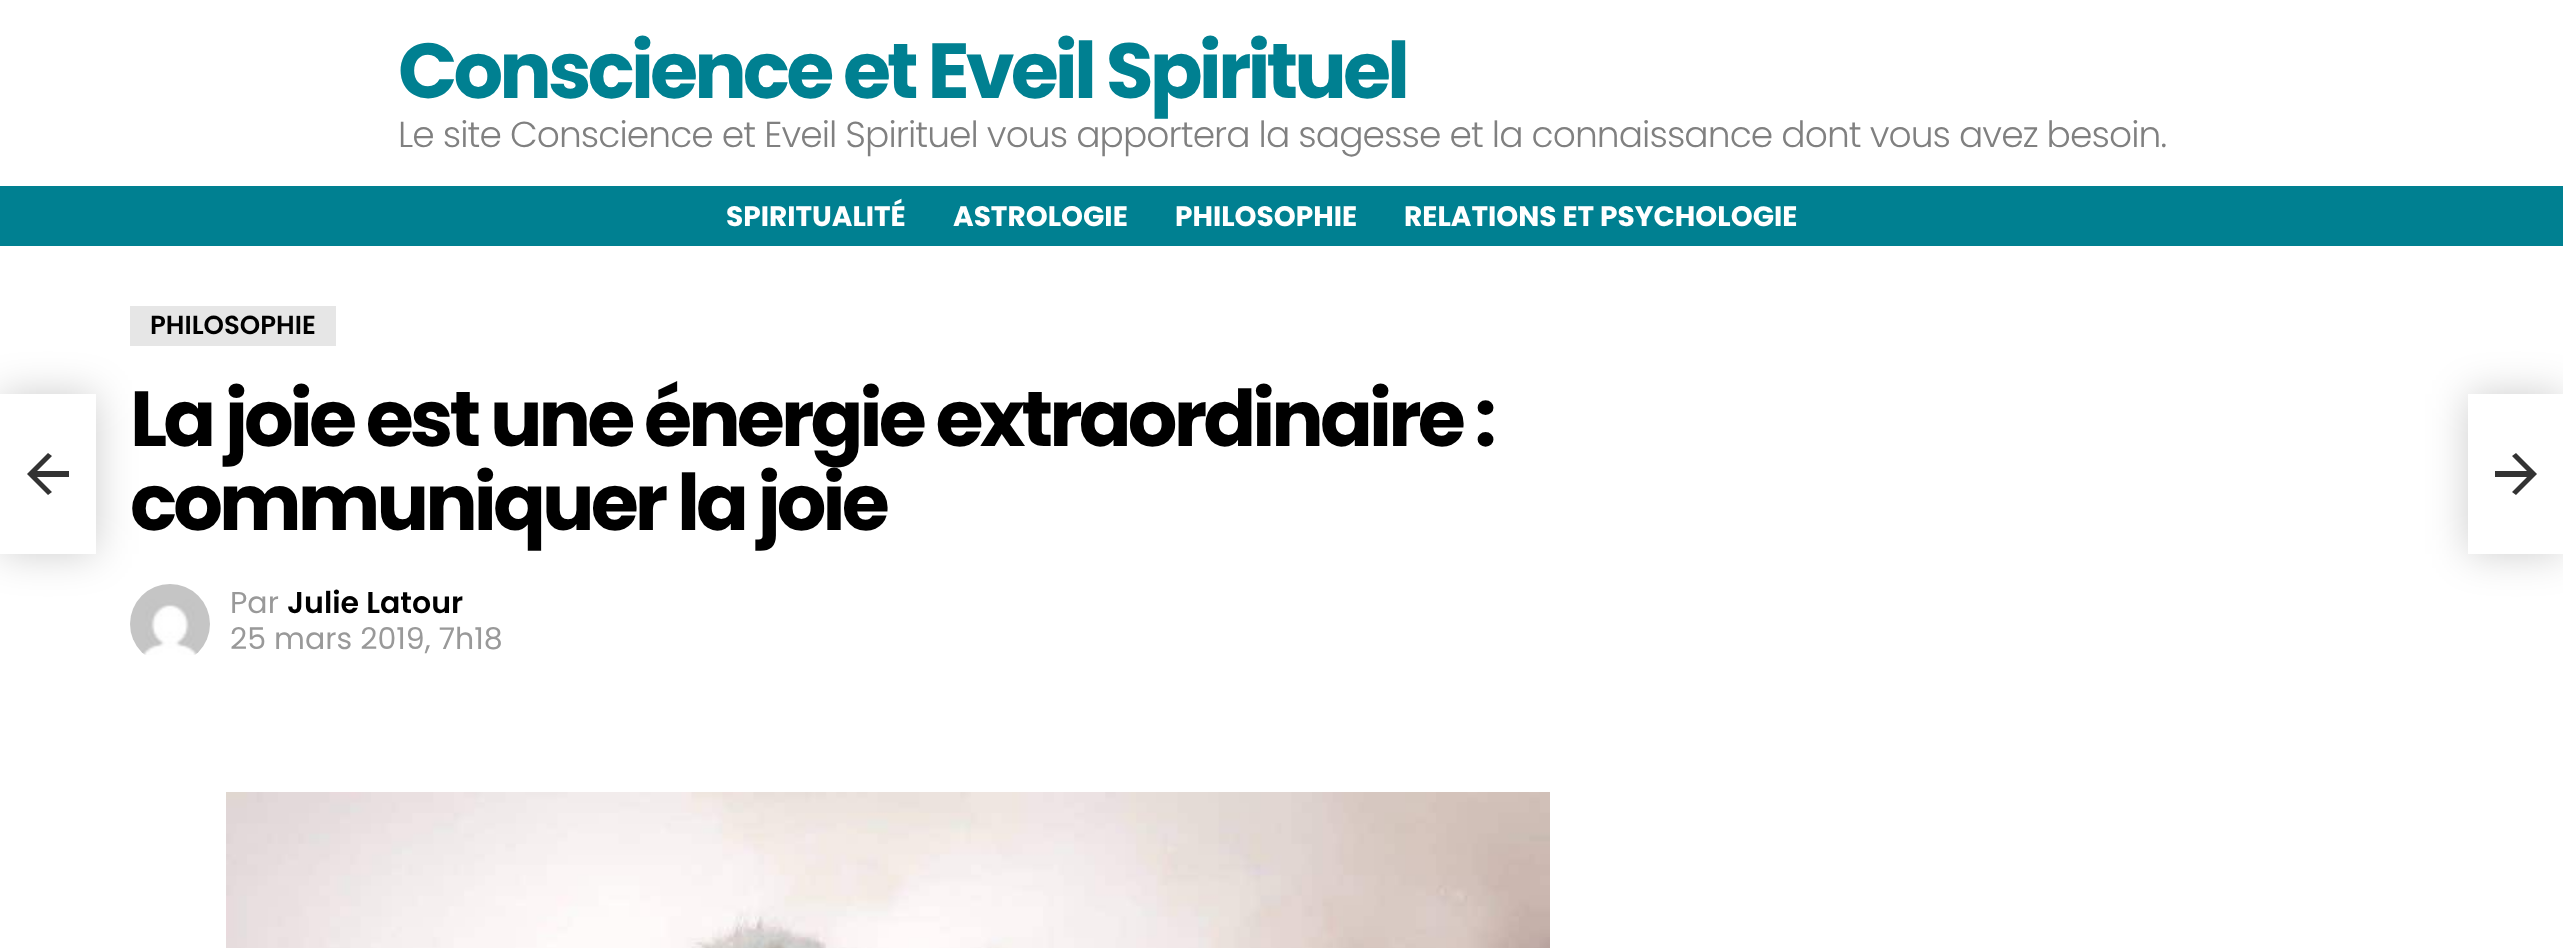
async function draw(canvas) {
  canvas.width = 2563;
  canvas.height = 948;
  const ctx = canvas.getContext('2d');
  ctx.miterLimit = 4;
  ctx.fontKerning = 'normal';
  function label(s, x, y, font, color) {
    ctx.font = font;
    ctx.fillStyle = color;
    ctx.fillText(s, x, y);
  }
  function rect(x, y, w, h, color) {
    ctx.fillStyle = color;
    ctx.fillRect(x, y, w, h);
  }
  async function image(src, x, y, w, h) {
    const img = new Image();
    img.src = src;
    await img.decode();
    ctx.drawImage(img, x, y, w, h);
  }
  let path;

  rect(0, 0, 2563, 948, '#fff');
  ctx.letterSpacing = '-3.9px';
  label('Conscience et Eveil Spirituel', 398, 98, 'bold 78px Poppins', '#008091');
  ctx.letterSpacing = '-0.9px';
  label('Le site Conscience et Eveil Spirituel vous apportera la sagesse et la connaissance dont vous avez besoin.', 398, 147, '300 36px Poppins', '#808080');
  rect(0, 186, 2563, 60, '#008091');
  ctx.letterSpacing = '0px';
  label('SPIRITUALITÉ', 726, 226, 'bold 28px Poppins', '#fff');
  label('ASTROLOGIE', 953, 226, 'bold 28px Poppins', '#fff');
  label('PHILOSOPHIE', 1175, 226, 'bold 28px Poppins', '#fff');
  label('RELATIONS ET PSYCHOLOGIE', 1404, 226, 'bold 28px Poppins', '#fff');
  rect(130, 306, 206, 40, '#e6e6e6');
  await image('assets/img1.png', 130, 584, 80, 71);
  ctx.fillStyle = '#00000033';
  ctx.filter = 'blur(20px)';
  ctx.beginPath();
  ctx.rect(0, 394, 96, 160);
  ctx.fill();
  ctx.filter = 'none';
  rect(0, 394, 96, 160, '#fff');
  ctx.fillStyle = '#333';
  path = new Path2D('M69 471H37L52 456L48 453L27 474L48 495L52 492L37 477H69Z');
  ctx.fill(path);
  label('PHILOSOPHIE', 150, 334, '600 26px Poppins', '#000');
  ctx.letterSpacing = '-3.9px';
  label('La joie est une énergie extraordinaire :', 130, 446, 'bold 78px Poppins', '#000');
  label('communiquer la joie', 130, 530, 'bold 78px Poppins', '#000');
  ctx.letterSpacing = '0px';
  label('Par', 230, 613, '30px Poppins', '#999');
  label('Julie Latour', 287, 613, '600 30px Poppins', '#000');
  label('25 mars 2019, 7h18', 230, 649, '30px Poppins', '#999');
  await image('assets/img2.png', 226, 792, 1324, 156);
  ctx.fillStyle = '#00000033';
  ctx.filter = 'blur(20px)';
  ctx.beginPath();
  ctx.rect(2468, 394, 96, 160);
  ctx.fill();
  ctx.filter = 'none';
  rect(2468, 394, 95, 160, '#fff');
  ctx.fillStyle = '#333';
  path = new Path2D('M2495 477H2527L2512 492L2516 495L2537 474L2516 453L2512 456L2527 471H2495Z');
  ctx.fill(path);
}

draw(document.querySelector('canvas'));
